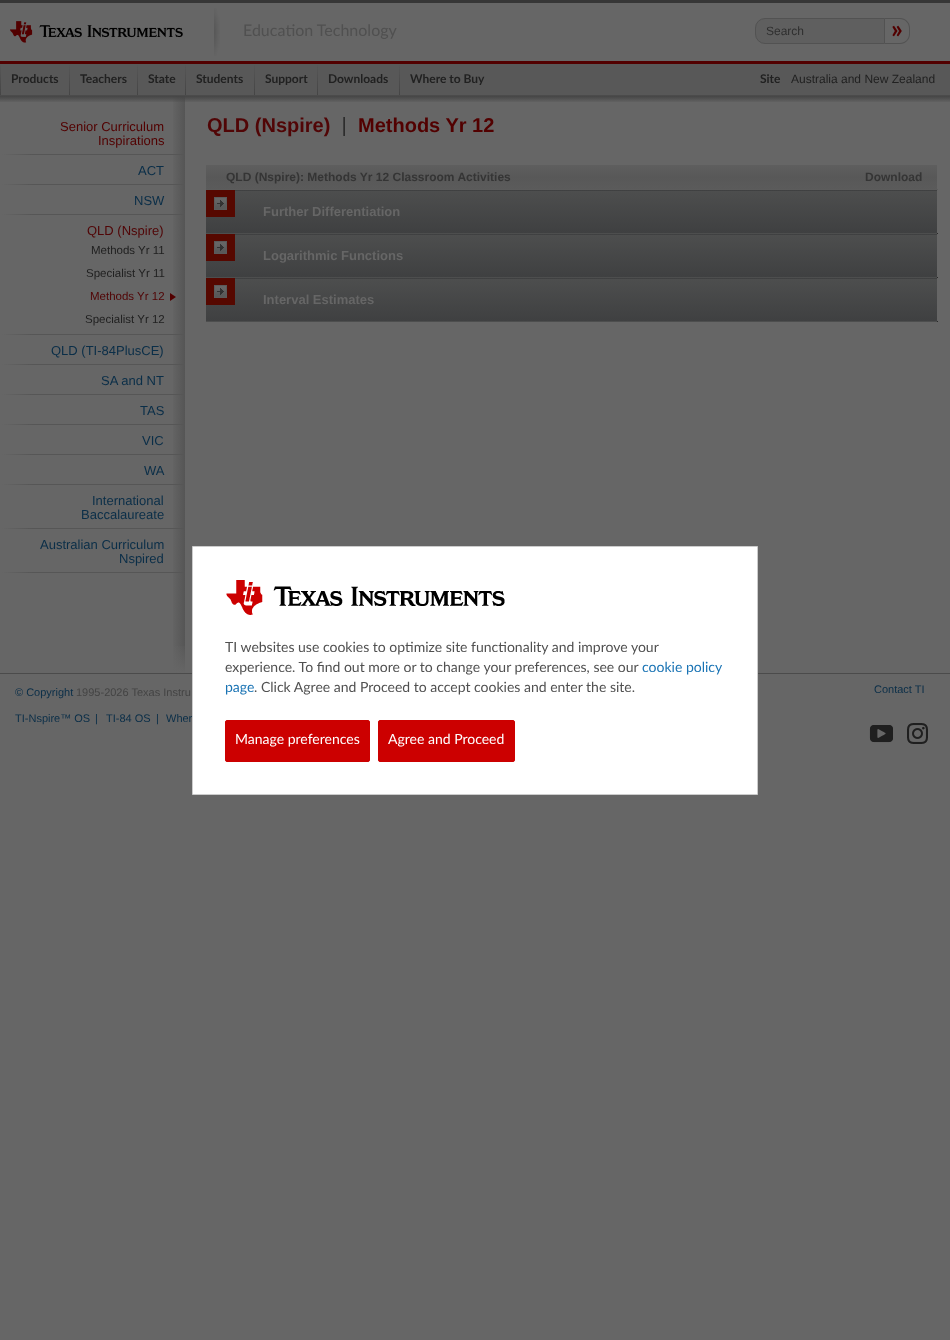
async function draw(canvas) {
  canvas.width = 950;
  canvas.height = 1340;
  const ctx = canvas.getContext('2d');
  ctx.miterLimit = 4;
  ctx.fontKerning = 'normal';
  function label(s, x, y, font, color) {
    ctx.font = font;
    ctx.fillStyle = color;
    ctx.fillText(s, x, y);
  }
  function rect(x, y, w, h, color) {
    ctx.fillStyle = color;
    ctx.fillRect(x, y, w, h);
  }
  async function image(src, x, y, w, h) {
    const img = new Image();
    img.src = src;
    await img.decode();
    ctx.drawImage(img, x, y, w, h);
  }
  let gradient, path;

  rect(0, 0, 950, 1340, '#666');
  rect(0, 0, 950, 3, '#363636');
  rect(0, 61, 950, 3, '#520000');
  await image('assets/img1.png', 214, 8, 6, 48);
  await image('assets/img2.png', 10, 21, 173, 22);
  label('Education Technology', 243, 36, '16px Lato', '#505050');
  ctx.fillStyle = '#5f5f5f';
  ctx.beginPath();
  ctx.roundRect(755.5, 18.5, 129, 25, [9.5, 0, 0, 9.5]);
  ctx.fill();
  ctx.strokeStyle = '#525252';
  ctx.stroke();
  label('Search', 766, 35, '12px Liberation Sans', '#2f2f2f');
  ctx.fillStyle = '#525252';
  path = new Path2D('M885 18H900C905.5 18 910 22.5 910 28V34C910 39.5 905.5 44 900 44H885ZM885 19H900C905 19 909 23 909 28V34C909 39 905 43 900 43H885Z');
  ctx.fill(path, 'evenodd');
  label('»', 891, 38, 'bold 26px Lato', '#520000');
  rect(0, 64, 950, 31, '#585858');
  rect(0, 95, 950, 1, '#4b4b4b');
  await image('assets/img3.png', 0, 65, 1, 30);
  label('Products', 11, 83, 'bold 12px Lato', '#212121');
  await image('assets/img4.png', 69, 65, 1, 30);
  label('Teachers', 80, 83, 'bold 12px Lato', '#212121');
  await image('assets/img5.png', 137, 65, 1, 30);
  label('State', 148, 83, 'bold 12px Lato', '#212121');
  await image('assets/img5.png', 185, 65, 1, 30);
  label('Students', 196, 83, 'bold 12px Lato', '#212121');
  await image('assets/img6.png', 254, 65, 1, 30);
  label('Support', 265, 83, 'bold 12px Lato', '#212121');
  await image('assets/img7.png', 317, 65, 1, 30);
  label('Downloads', 328, 83, 'bold 12px Lato', '#212121');
  await image('assets/img5.png', 399, 65, 1, 30);
  label('Where to Buy', 410, 83, 'bold 12px Lato', '#212121');
  label('Site', 760, 83, 'bold 12px Lato', '#212121');
  label('Australia and New Zealand', 791, 83, '12px Liberation Sans', '#212121');
  gradient = ctx.createLinearGradient(171, 385, 185, 385);
  gradient.addColorStop(0, '#666');
  gradient.addColorStop(1, '#555');
  ctx.fillStyle = gradient;
  ctx.fillRect(173, 96, 12, 577);
  gradient = ctx.createLinearGradient(480, 96, 480, 103);
  gradient.addColorStop(0, '#454545');
  gradient.addColorStop(1, '#45454500');
  ctx.fillStyle = gradient;
  ctx.fillRect(0, 96, 950, 6);
  label('Senior Curriculum', 60, 131, '13px Liberation Sans', '#520000');
  label('Inspirations', 98, 145, '13px Liberation Sans', '#520000');
  gradient = ctx.createLinearGradient(2, 155, 32, 155);
  gradient.addColorStop(0, '#666');
  gradient.addColorStop(1, '#565656');
  ctx.fillStyle = gradient;
  ctx.fillRect(2, 154, 30, 1);
  rect(32, 154, 153, 1, '#565656');
  label('ACT', 138, 175, '13px Liberation Sans', '#0a2e48');
  gradient = ctx.createLinearGradient(2, 185, 32, 185);
  gradient.addColorStop(0, '#666');
  gradient.addColorStop(1, '#565656');
  ctx.fillStyle = gradient;
  ctx.fillRect(2, 184, 30, 1);
  rect(32, 184, 153, 1, '#565656');
  label('NSW', 134, 205, '13px Liberation Sans', '#0a2e48');
  gradient = ctx.createLinearGradient(2, 215, 32, 215);
  gradient.addColorStop(0, '#666');
  gradient.addColorStop(1, '#565656');
  ctx.fillStyle = gradient;
  ctx.fillRect(2, 214, 30, 1);
  rect(32, 214, 153, 1, '#565656');
  label('QLD (Nspire)', 87, 235, '13px Liberation Sans', '#510506');
  label('Methods Yr 11', 91, 254, '11.5px Liberation Sans', '#212121');
  label('Specialist Yr 11', 86, 277, '11.5px Liberation Sans', '#212121');
  label('Methods Yr 12', 90, 300, '11.5px Liberation Sans', '#510506');
  ctx.fillStyle = '#520000';
  path = new Path2D('M170 301V293L176 297Z');
  ctx.fill(path);
  label('Specialist Yr 12', 85, 323, '11.5px Liberation Sans', '#212121');
  gradient = ctx.createLinearGradient(2, 335, 32, 335);
  gradient.addColorStop(0, '#666');
  gradient.addColorStop(1, '#565656');
  ctx.fillStyle = gradient;
  ctx.fillRect(2, 334, 30, 1);
  rect(32, 334, 153, 1, '#565656');
  label('QLD (TI-84PlusCE)', 51, 355, '13px Liberation Sans', '#0a2e48');
  gradient = ctx.createLinearGradient(2, 365, 32, 365);
  gradient.addColorStop(0, '#666');
  gradient.addColorStop(1, '#565656');
  ctx.fillStyle = gradient;
  ctx.fillRect(2, 364, 30, 1);
  rect(32, 364, 153, 1, '#565656');
  label('SA and NT', 101, 385, '13px Liberation Sans', '#0a2e48');
  gradient = ctx.createLinearGradient(2, 395, 32, 395);
  gradient.addColorStop(0, '#666');
  gradient.addColorStop(1, '#565656');
  ctx.fillStyle = gradient;
  ctx.fillRect(2, 394, 30, 1);
  rect(32, 394, 153, 1, '#565656');
  label('TAS', 140, 415, '13px Liberation Sans', '#0a2e48');
  gradient = ctx.createLinearGradient(2, 425, 32, 425);
  gradient.addColorStop(0, '#666');
  gradient.addColorStop(1, '#565656');
  ctx.fillStyle = gradient;
  ctx.fillRect(2, 424, 30, 1);
  rect(32, 424, 153, 1, '#565656');
  label('VIC', 142, 445, '13px Liberation Sans', '#0a2e48');
  gradient = ctx.createLinearGradient(2, 455, 32, 455);
  gradient.addColorStop(0, '#666');
  gradient.addColorStop(1, '#565656');
  ctx.fillStyle = gradient;
  ctx.fillRect(2, 454, 30, 1);
  rect(32, 454, 153, 1, '#565656');
  label('WA', 144, 475, '13px Liberation Sans', '#0a2e48');
  gradient = ctx.createLinearGradient(2, 485, 32, 485);
  gradient.addColorStop(0, '#666');
  gradient.addColorStop(1, '#565656');
  ctx.fillStyle = gradient;
  ctx.fillRect(2, 484, 30, 1);
  rect(32, 484, 153, 1, '#565656');
  label('International', 92, 505, '13px Liberation Sans', '#0a2e48');
  label('Baccalaureate', 81, 519, '13px Liberation Sans', '#0a2e48');
  gradient = ctx.createLinearGradient(2, 529, 32, 529);
  gradient.addColorStop(0, '#666');
  gradient.addColorStop(1, '#565656');
  ctx.fillStyle = gradient;
  ctx.fillRect(2, 528, 30, 1);
  rect(32, 528, 153, 1, '#565656');
  label('Australian Curriculum', 40, 549, '13px Liberation Sans', '#0a2e48');
  label('Nspired', 119, 563, '13px Liberation Sans', '#0a2e48');
  gradient = ctx.createLinearGradient(2, 573, 32, 573);
  gradient.addColorStop(0, '#666');
  gradient.addColorStop(1, '#565656');
  ctx.fillStyle = gradient;
  ctx.fillRect(2, 572, 30, 1);
  rect(32, 572, 153, 1, '#565656');
  gradient = ctx.createLinearGradient(178, 641, 178, 673);
  gradient.addColorStop(0, '#66666600');
  gradient.addColorStop(1, '#666');
  ctx.fillStyle = gradient;
  ctx.fillRect(173, 646, 12, 27);
  label('QLD (Nspire)', 207, 132, 'bold 20px Liberation Sans', '#510506');
  rect(344, 117, 1, 19, '#2d2d2d');
  rect(343, 117, 1, 19, '#3d3d3d');
  label('Methods Yr 12', 358, 132, 'bold 20px Liberation Sans', '#520000');
  gradient = ctx.createLinearGradient(528, 165, 528, 190);
  gradient.addColorStop(0, '#5e5e5e');
  gradient.addColorStop(0.5, '#585858');
  gradient.addColorStop(1, '#5b5b5b');
  ctx.fillStyle = gradient;
  ctx.fillRect(206, 165, 644, 24);
  label('QLD (Nspire): Methods Yr 12 Classroom Activities', 226, 181, 'bold 12px Liberation Sans', '#353535');
  gradient = ctx.createLinearGradient(894, 165, 894, 190);
  gradient.addColorStop(0, '#5e5e5e');
  gradient.addColorStop(0.5, '#585858');
  gradient.addColorStop(1, '#5b5b5b');
  ctx.fillStyle = gradient;
  ctx.fillRect(850, 165, 87, 24);
  label('Download', 865, 181, 'bold 12px Liberation Sans', '#353535');
  rect(206, 189, 732, 1, '#5c5c5c');
  rect(937, 233, 1, 1, '#292929');
  gradient = ctx.createLinearGradient(572, 149, 572, 191);
  gradient.addColorStop(0, '#4d4e4e');
  gradient.addColorStop(1, '#3f4041');
  ctx.fillStyle = gradient;
  ctx.fillRect(235, 190, 702, 1);
  gradient = ctx.createLinearGradient(572, 191, 572, 233);
  gradient.addColorStop(0, '#4d4e4e');
  gradient.addColorStop(1, '#3f4041');
  ctx.fillStyle = gradient;
  ctx.fillRect(206, 191, 731, 42);
  gradient = ctx.createLinearGradient(572, 233, 572, 275);
  gradient.addColorStop(0, '#4d4e4e');
  gradient.addColorStop(1, '#3f4041');
  ctx.fillStyle = gradient;
  ctx.fillRect(206, 233, 731, 1);
  await image('assets/img8.png', 214, 197, 13, 13);
  rect(206, 190, 29, 7, '#560800');
  rect(227, 190, 8, 27, '#560800');
  rect(206, 210, 29, 7, '#560800');
  rect(206, 190, 8, 27, '#560800');
  label('Further Differentiation', 263, 216, 'bold 13px Liberation Sans', '#666');
  rect(937, 277, 1, 1, '#292929');
  gradient = ctx.createLinearGradient(572, 193, 572, 235);
  gradient.addColorStop(0, '#4d4e4e');
  gradient.addColorStop(1, '#3f4041');
  ctx.fillStyle = gradient;
  ctx.fillRect(235, 234, 702, 1);
  gradient = ctx.createLinearGradient(572, 235, 572, 277);
  gradient.addColorStop(0, '#4d4e4e');
  gradient.addColorStop(1, '#3f4041');
  ctx.fillStyle = gradient;
  ctx.fillRect(206, 235, 731, 42);
  gradient = ctx.createLinearGradient(572, 277, 572, 319);
  gradient.addColorStop(0, '#4d4e4e');
  gradient.addColorStop(1, '#3f4041');
  ctx.fillStyle = gradient;
  ctx.fillRect(206, 277, 731, 1);
  await image('assets/img8.png', 214, 241, 13, 13);
  rect(206, 234, 29, 7, '#560800');
  rect(227, 234, 8, 27, '#560800');
  rect(206, 254, 29, 7, '#560800');
  rect(206, 234, 8, 27, '#560800');
  label('Logarithmic Functions', 263, 260, 'bold 13px Liberation Sans', '#666');
  rect(937, 321, 1, 1, '#292929');
  gradient = ctx.createLinearGradient(572, 237, 572, 279);
  gradient.addColorStop(0, '#4d4e4e');
  gradient.addColorStop(1, '#3f4041');
  ctx.fillStyle = gradient;
  ctx.fillRect(235, 278, 702, 1);
  gradient = ctx.createLinearGradient(572, 279, 572, 321);
  gradient.addColorStop(0, '#4d4e4e');
  gradient.addColorStop(1, '#3f4041');
  ctx.fillStyle = gradient;
  ctx.fillRect(206, 279, 731, 42);
  gradient = ctx.createLinearGradient(572, 321, 572, 363);
  gradient.addColorStop(0, '#4d4e4e');
  gradient.addColorStop(1, '#3f4041');
  ctx.fillStyle = gradient;
  ctx.fillRect(206, 321, 731, 1);
  await image('assets/img8.png', 214, 285, 13, 13);
  rect(206, 278, 29, 7, '#560800');
  rect(227, 278, 8, 27, '#560800');
  rect(206, 298, 29, 7, '#560800');
  rect(206, 278, 8, 27, '#560800');
  label('Interval Estimates', 263, 304, 'bold 13px Liberation Sans', '#666');
  rect(0, 673, 950, 1, '#4b4b4b');
  label('Wher', 166, 722, '11px Liberation Sans', '#0a2e48');
  ctx.fillStyle = '#fff';
  ctx.beginPath();
  ctx.rect(192.5, 546.5, 565, 248);
  ctx.fill();
  ctx.strokeStyle = '#ccc';
  ctx.stroke();
  await image('assets/img9.png', 226, 580, 279, 35);
  label('TI websites use cookies to optimize site functionality and improve your', 225, 652, '14px Lato', '#505050');
  label('experience. To find out more or to change your preferences, see our', 225, 672, '14px Lato', '#505050');
  label('cookie policy', 642, 672, '14px Lato', '#1973b4');
  label('page', 225, 692, '14px Lato', '#1973b4');
  label('. Click Agree and Proceed to accept cookies and enter the site.', 254, 692, '14px Lato', '#505050');
  ctx.fillStyle = '#c00';
  ctx.beginPath();
  ctx.roundRect(225.5, 720.5, 144, 41, 1.5);
  ctx.fill();
  ctx.strokeStyle = '#c00';
  ctx.stroke();
  label('Manage preferences', 235, 744, '14px Lato', '#fff');
  ctx.fillStyle = '#c00';
  ctx.beginPath();
  ctx.roundRect(378.5, 720.5, 136, 41, 1.5);
  ctx.fill();
  ctx.stroke();
  label('Agree and Proceed', 388, 744, '14px Lato', '#fff');
  label('© Copyright', 15, 696, '11px Liberation Sans', '#0a2e48');
  label('1995-2026 Texas Instru', 76, 696, '11px Liberation Sans', '#444');
  label('TI-Nspire™ OS', 15, 722, '11px Liberation Sans', '#0a2e48');
  label('|', 95, 722, '11px Liberation Sans', '#0a2e48');
  label('TI-84 OS', 106, 722, '11px Liberation Sans', '#0a2e48');
  label('|', 156, 722, '11px Liberation Sans', '#0a2e48');
  label('Contact TI', 874, 693, '11px Liberation Sans', '#0a2e48');
  await image('assets/img10.png', 869, 725, 24, 18);
  await image('assets/img11.png', 907, 723, 21, 21);
}

draw(document.querySelector('canvas'));
